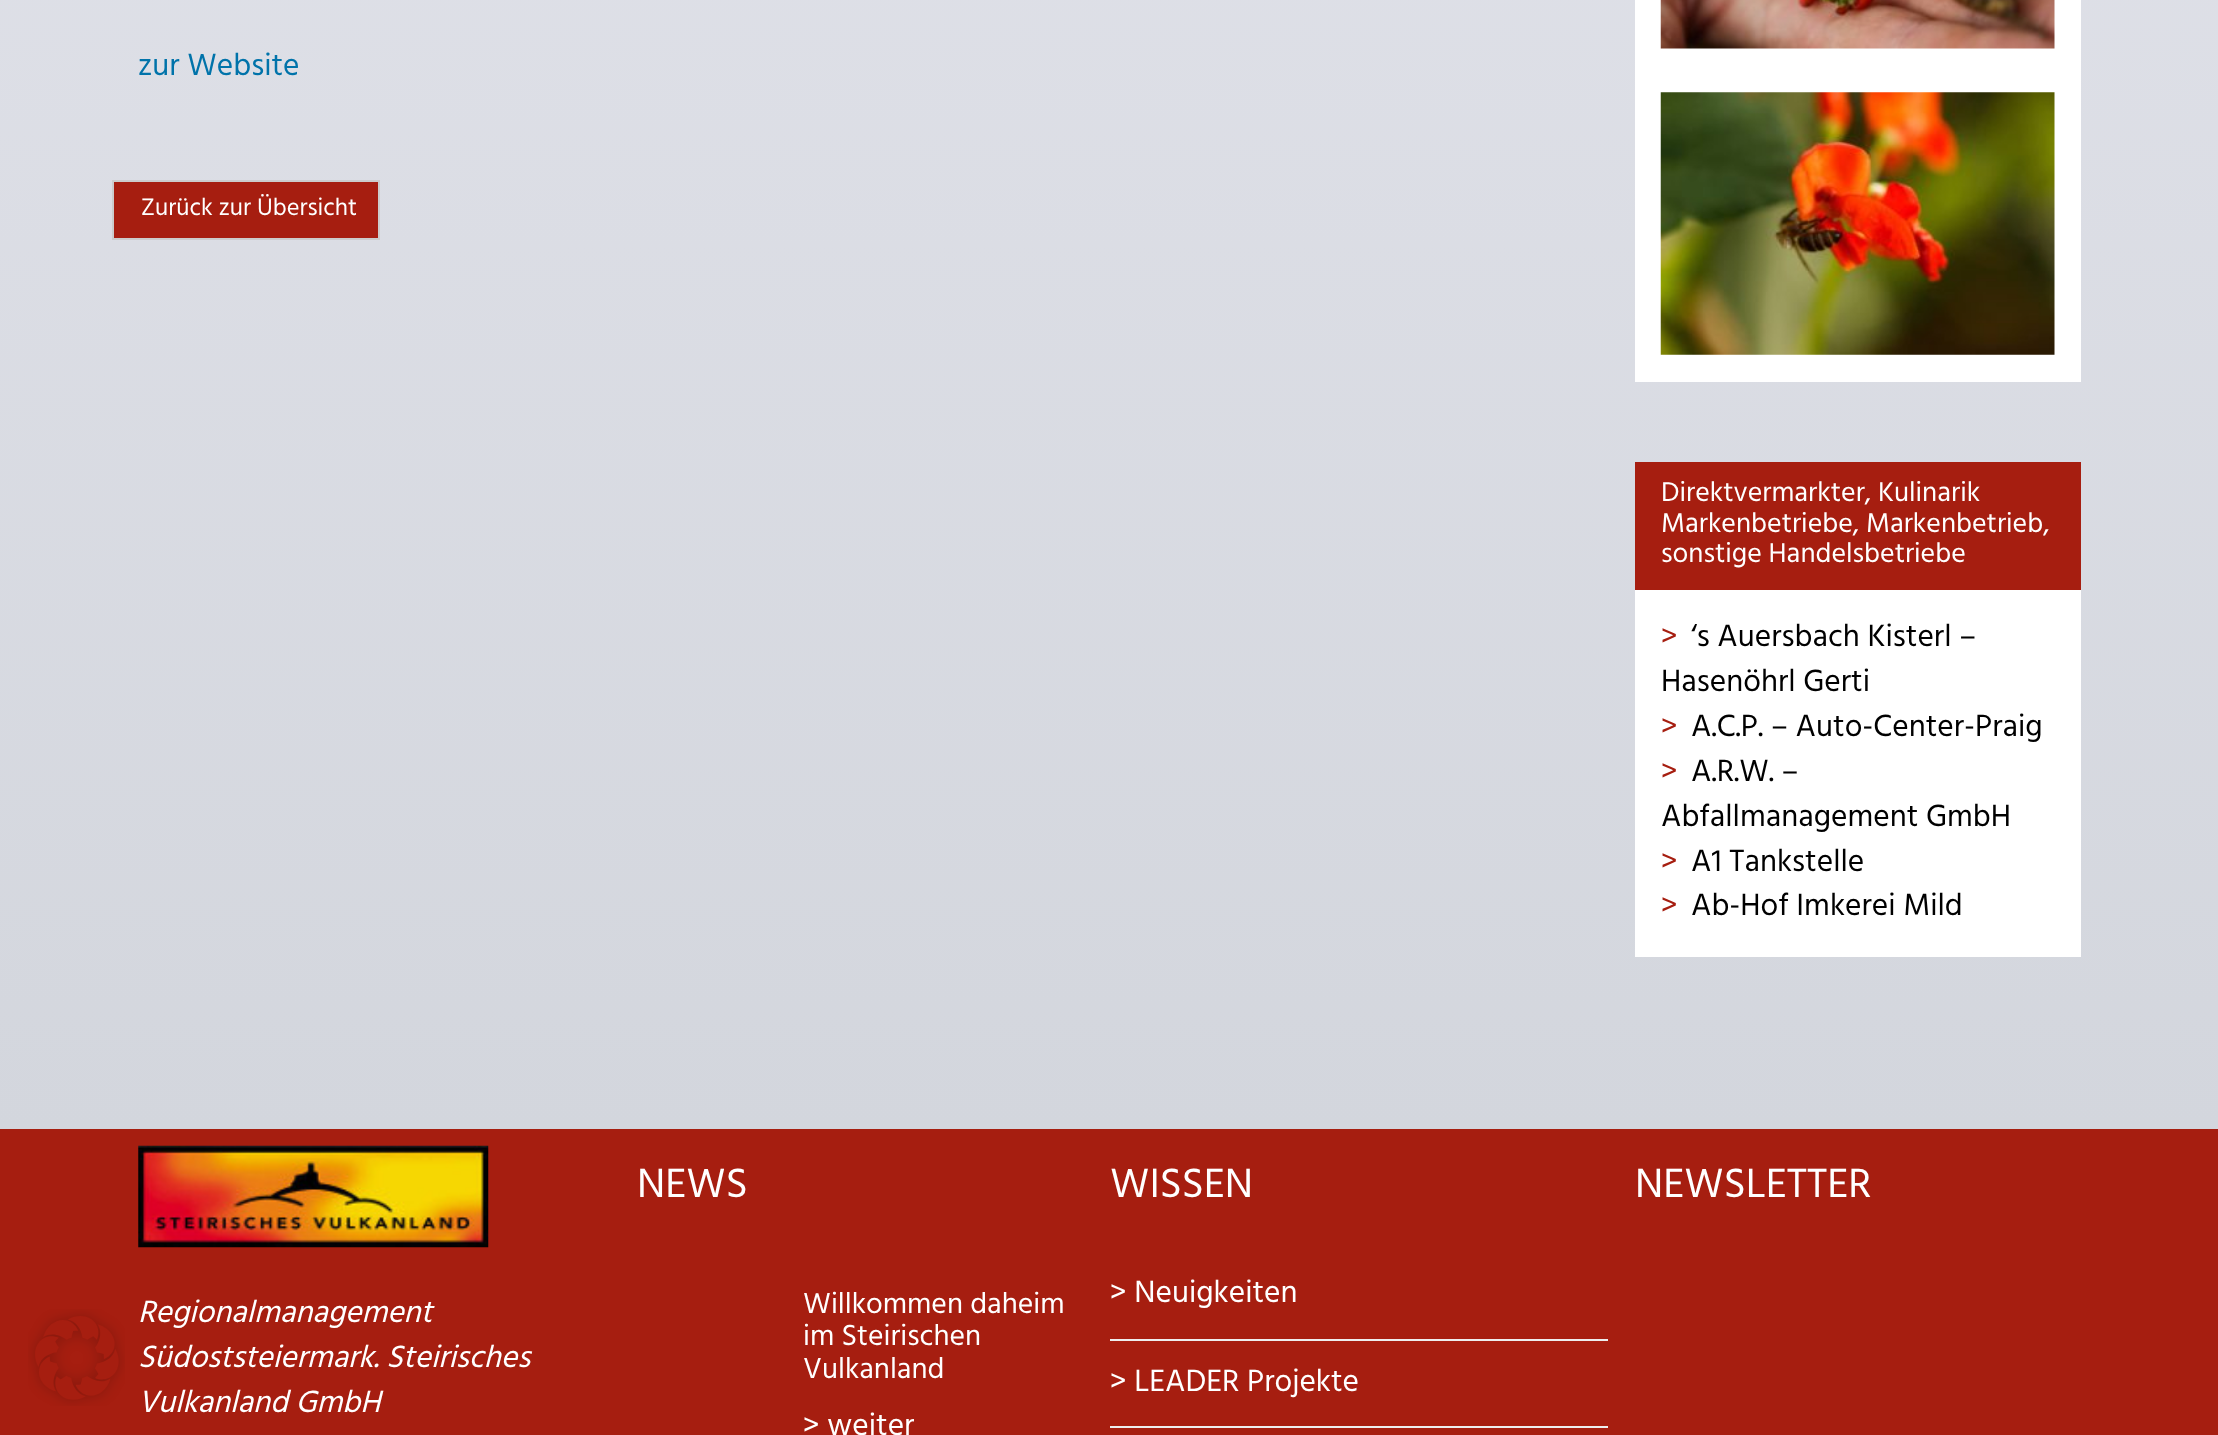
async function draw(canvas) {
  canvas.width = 2218;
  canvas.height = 1435;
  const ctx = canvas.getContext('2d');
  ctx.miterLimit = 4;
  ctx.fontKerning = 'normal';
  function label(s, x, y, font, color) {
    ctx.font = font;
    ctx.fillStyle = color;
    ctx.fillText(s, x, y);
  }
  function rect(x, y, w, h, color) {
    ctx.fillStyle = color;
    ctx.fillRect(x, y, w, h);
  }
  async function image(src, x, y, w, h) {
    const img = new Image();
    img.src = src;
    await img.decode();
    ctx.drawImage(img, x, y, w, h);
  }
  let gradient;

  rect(0, 0, 2218, 1435, '#fff');
  gradient = ctx.createLinearGradient(1109, -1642, 1110, 1129);
  gradient.addColorStop(0, '#ececf4');
  gradient.addColorStop(1, '#d3d6dd');
  ctx.fillStyle = gradient;
  ctx.fillRect(0, 0, 2218, 1129);
  label('zur Website', 138, 75, '31.5px Hind', '#0073aa');
  ctx.fillStyle = '#a61e10';
  ctx.beginPath();
  ctx.rect(113, 181, 266, 58);
  ctx.fill();
  ctx.strokeStyle = '#ccc';
  ctx.lineWidth = 2;
  ctx.stroke();
  label('Zurück zur Übersicht', 141, 215, '24.5px Hind', '#fff');
  rect(1635, 0, 446, 382, '#fff');
  await image('assets/img1.png', 1660, 0, 395, 49);
  await image('assets/img2.png', 1660, 92, 395, 263);
  rect(1635, 462, 446, 128, '#a61e10');
  label('Direktvermarkter, Kulinarik', 1661, 501, '28px Hind', '#fff');
  label('Markenbetriebe, Markenbetrieb,', 1661, 532, '28px Hind', '#fff');
  label('sonstige Handelsbetriebe', 1661, 562, '28px Hind', '#fff');
  rect(1635, 590, 446, 367, '#fff');
  label('>', 1661, 646, '31.5px Hind', '#a61e10');
  label('‘s Auersbach Kisterl –', 1691, 646, '31.5px Hind', '#000');
  label('Hasenöhrl Gerti', 1661, 691, '31.5px Hind', '#000');
  label('>', 1661, 736, '31.5px Hind', '#a61e10');
  label('A.C.P. – Auto-Center-Praig', 1691, 736, '31.5px Hind', '#000');
  label('>', 1661, 781, '31.5px Hind', '#a61e10');
  label('A.R.W. –', 1691, 781, '31.5px Hind', '#000');
  label('Abfallmanagement GmbH', 1661, 826, '31.5px Hind', '#000');
  label('>', 1661, 871, '31.5px Hind', '#a61e10');
  label('A1 Tankstelle', 1691, 871, '31.5px Hind', '#000');
  label('>', 1661, 915, '31.5px Hind', '#a61e10');
  label('Ab-Hof Imkerei Mild', 1691, 915, '31.5px Hind', '#000');
  rect(0, 1129, 2218, 306, '#a61e10');
  await image('assets/img3.png', 28, 1309, 97, 97);
  label('NEWS', 637, 1197, '42px Hind', '#fff');
  label('Willkommen daheim', 803, 1313, '29.75px Hind', '#fff');
  label('im Steirischen', 803, 1345, '29.75px Hind', '#fff');
  label('Vulkanland', 803, 1378, '29.75px Hind', '#fff');
  label('> weiter', 803, 1435, '31.5px Hind', '#fff');
  label('WISSEN', 1110, 1197, '42px Hind', '#fff');
  label('> Neuigkeiten', 1110, 1302, '31.5px Hind', '#fff');
  rect(1110, 1339, 498, 2, '#eee');
  label('> LEADER Projekte', 1110, 1391, '31.5px Hind', '#fff');
  rect(1110, 1426, 498, 2, '#eee');
  label('NEWSLETTER', 1635, 1197, '42px Hind', '#fff');
  await image('assets/img4.png', 138, 1145, 351, 103);
  label('Regionalmanagement', 138, 1322, 'italic 31.5px Hind', '#fff');
  label('Südoststeiermark. Steirisches', 138, 1367, 'italic 31.5px Hind', '#fff');
  label('Vulkanland GmbH', 138, 1412, 'italic 31.5px Hind', '#fff');
}

draw(document.querySelector('canvas'));
